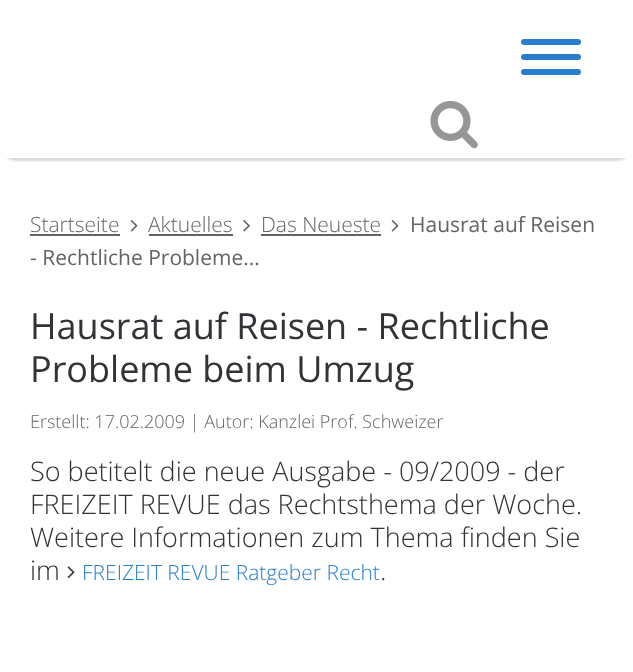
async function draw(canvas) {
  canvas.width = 633;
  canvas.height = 672;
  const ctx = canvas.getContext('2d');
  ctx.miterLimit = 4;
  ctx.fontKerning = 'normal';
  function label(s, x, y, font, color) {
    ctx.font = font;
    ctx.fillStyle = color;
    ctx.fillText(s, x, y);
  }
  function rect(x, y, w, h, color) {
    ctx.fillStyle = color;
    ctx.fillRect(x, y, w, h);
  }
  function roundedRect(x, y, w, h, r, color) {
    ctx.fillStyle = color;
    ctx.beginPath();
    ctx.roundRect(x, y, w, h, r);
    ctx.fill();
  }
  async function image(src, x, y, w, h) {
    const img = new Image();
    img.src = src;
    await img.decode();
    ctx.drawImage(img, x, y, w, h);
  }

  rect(0, 0, 633, 672, '#fff');
  ctx.fillStyle = '#00000026';
  ctx.filter = 'blur(1px)';
  ctx.beginPath();
  ctx.roundRect(0, 3, 633, 158, 17);
  ctx.fill();
  ctx.filter = 'none';
  rect(0, 2, 633, 156, '#fff');
  roundedRect(521, 39, 60, 6, 3, '#287dcd');
  roundedRect(521, 54, 60, 6, 3, '#287dcd');
  roundedRect(521, 69, 60, 6, 3, '#287dcd');
  await image('assets/img1.png', 430, 100, 48, 49);
  label('Startseite', 30, 232, '300 21px Open Sans', '#646464');
  rect(30, 234, 90, 2, '#646464');
  await image('assets/img2.png', 130, 220, 8, 12);
  label('Aktuelles', 148, 232, '300 21px Open Sans', '#646464');
  rect(149, 234, 84, 2, '#646464');
  await image('assets/img3.png', 243, 220, 7, 12);
  label('Das Neueste', 261, 232, '300 21px Open Sans', '#646464');
  rect(261, 234, 120, 2, '#646464');
  await image('assets/img2.png', 391, 220, 8, 12);
  label('Hausrat auf Reisen', 410, 232, '21px Open Sans', '#646464');
  label('- Rechtliche Probleme...', 30, 265, '21px Open Sans', '#646464');
  label('Hausrat auf Reisen - Rechtliche', 30, 339, '36px Open Sans', '#323237');
  label('Probleme beim Umzug', 30, 382, '36px Open Sans', '#323237');
  label('Erstellt: 17.02.2009 | Autor: Kanzlei Prof. Schweizer', 30, 428, '300 18px Open Sans', '#646464');
  label('So betitelt die neue Ausgabe - 09/2009 - der', 30, 481, '300 27px Open Sans', '#323237');
  label('FREIZEIT REVUE das Rechtsthema der Woche.', 30, 514, '300 27px Open Sans', '#323237');
  label('Weitere Informationen zum Thema finden Sie', 30, 547, '300 27px Open Sans', '#323237');
  label('im', 30, 580, '300 27px Open Sans', '#323237');
  await image('assets/img4.png', 67, 566, 8, 12);
  label('FREIZEIT REVUE Ratgeber Recht', 82, 580, '300 21px Open Sans', '#287dcd');
  label('.', 380, 580, '300 27px Open Sans', '#323237');
}

draw(document.querySelector('canvas'));
